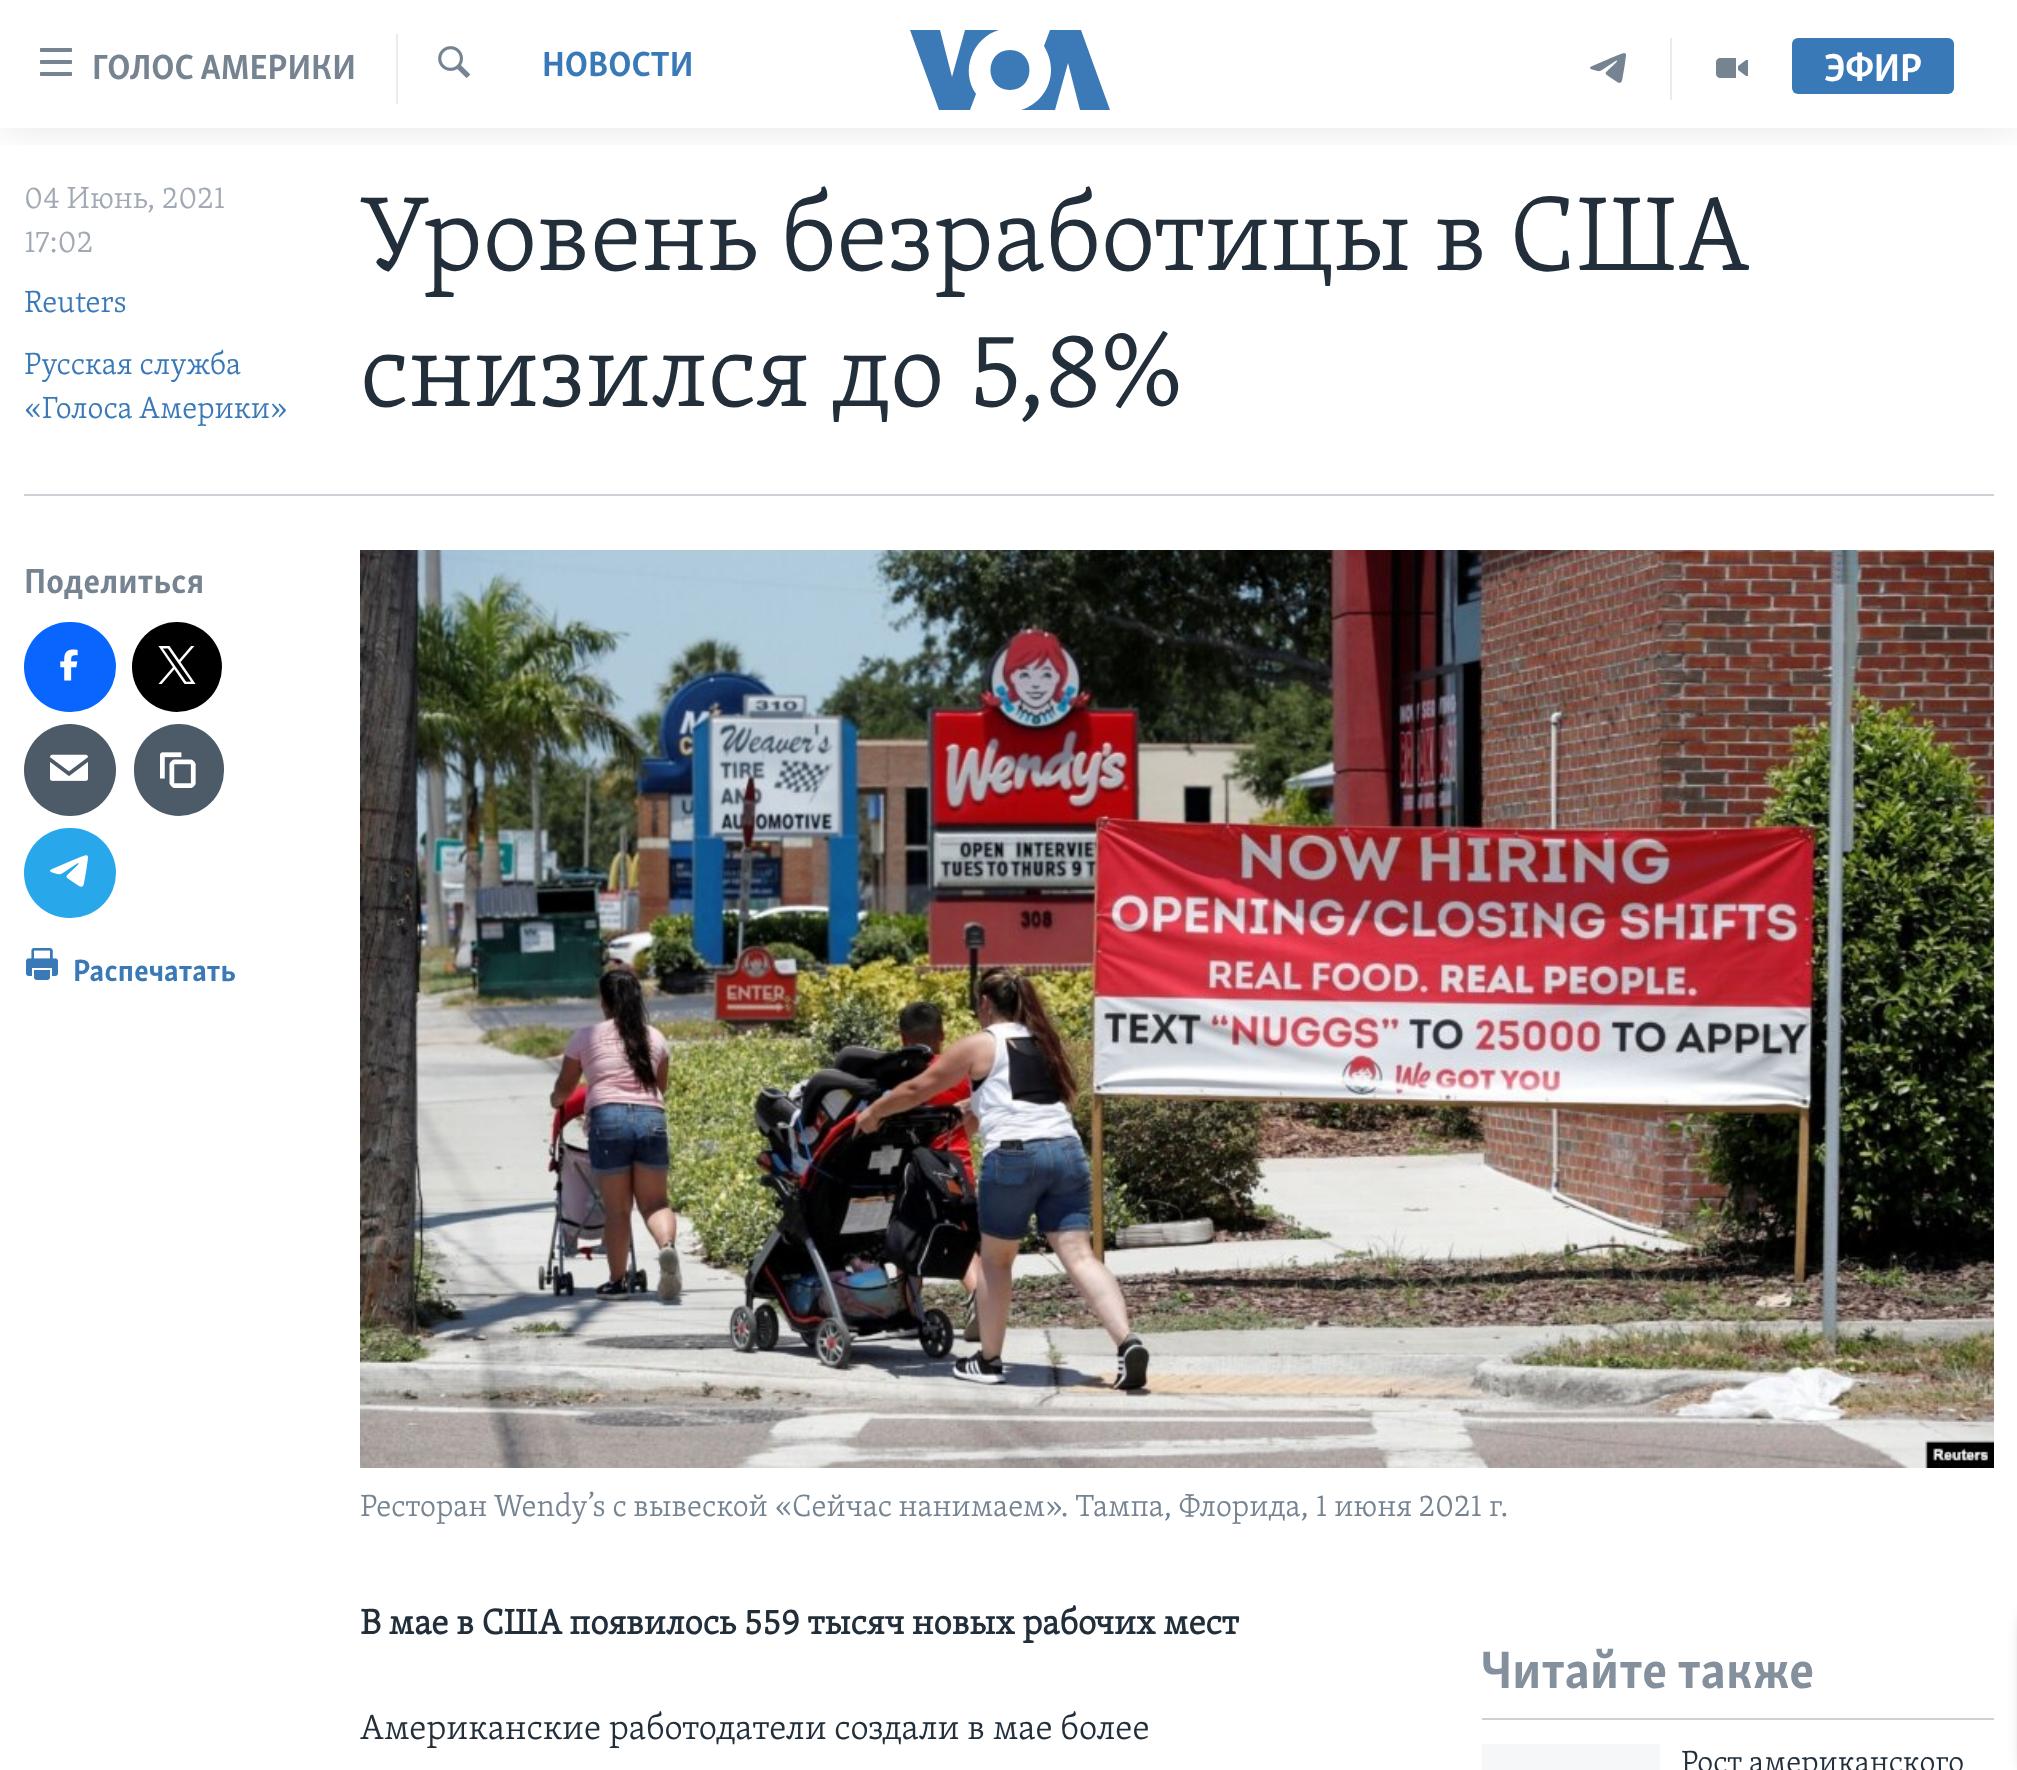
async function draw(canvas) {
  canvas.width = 2017;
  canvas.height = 1770;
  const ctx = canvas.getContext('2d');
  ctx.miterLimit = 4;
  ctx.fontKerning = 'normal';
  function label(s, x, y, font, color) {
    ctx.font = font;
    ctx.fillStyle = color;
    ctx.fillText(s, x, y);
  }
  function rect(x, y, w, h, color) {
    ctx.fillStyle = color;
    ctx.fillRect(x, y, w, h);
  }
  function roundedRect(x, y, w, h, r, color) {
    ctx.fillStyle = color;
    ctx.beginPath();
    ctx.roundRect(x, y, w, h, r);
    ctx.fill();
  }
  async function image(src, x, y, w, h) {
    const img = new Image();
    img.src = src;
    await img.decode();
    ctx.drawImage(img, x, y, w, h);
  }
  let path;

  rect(0, 0, 2017, 1770, '#fff');
  ctx.save();
  ctx.beginPath();
  ctx.rect(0, 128, 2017, 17);
  ctx.clip();
  ctx.fillStyle = '#0000001a';
  ctx.filter = 'blur(20px)';
  ctx.beginPath();
  ctx.rect(0, 0, 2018, 128);
  ctx.fill();
  ctx.filter = 'none';
  ctx.restore();
  await image('assets/img1.png', 40, 48, 32, 28);
  label('ГОЛОС АМЕРИКИ', 92, 79, 'bold 36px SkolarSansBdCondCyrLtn', '#768492');
  rect(396, 34, 2, 70, '#ebebeb');
  await image('assets/img2.png', 438, 46, 32, 32);
  label('НОВОСТИ', 542, 76, 'bold 36px SkolarSansBdCondCyrLtn', '#3a79b7');
  ctx.fillStyle = '#3b79b7';
  path = new Path2D('M976 94L970 110H939L910 30H940L952 77L965 30H999C972 38 960 71 976 94ZM1010 50C984 50 984 90 1010 90C1036 90 1036 50 1010 50ZM1051 70C1051 89 1038 105 1021 110H1055L1068 63L1080 110H1110L1081 30H1050L1044 46C1048 53 1051 61 1051 70Z');
  ctx.fill(path);
  rect(1670, 38, 2, 62, '#ebebeb');
  await image('assets/img3.png', 1590, 53, 36, 30);
  await image('assets/img4.png', 1716, 58, 32, 20);
  roundedRect(1792, 38, 162, 56, 6, '#3a79b7');
  label('ЭФИР', 1824, 81, 'bold 40px SkolarSansBdCondCyrLtn', '#fff');
  label('04 Июнь, 2021', 24, 208, '300 31.5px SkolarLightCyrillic', '#a1aab4');
  label('17:02', 24, 252, '300 31.5px SkolarLightCyrillic', '#a1aab4');
  label('Reuters', 24, 312, '300 31.5px SkolarLightCyrillic', '#3a79b7');
  label('Русская служба', 24, 374, '300 31.5px SkolarLightCyrillic', '#3a79b7');
  label('«Голоса Америки»', 24, 418, '300 31.5px SkolarLightCyrillic', '#3a79b7');
  ctx.wordSpacing = '-0.5px';
  label('Уровень безработицы в США', 360, 270, '300 108px SkolarLightCyrillic', '#222f3a');
  ctx.wordSpacing = '0px';
  label('снизился до 5,8%', 360, 406, '300 108px SkolarLightCyrillic', '#222f3a');
  rect(24, 494, 1970, 2, '#cbd1d6');
  label('Поделиться', 24, 593, 'bold 36px SkolarSansBdCondCyrLtn', '#768492');
  roundedRect(24, 622, 92, 90, 45, '#0866ff');
  await image('assets/img5.png', 60, 649, 18, 32);
  ctx.fillStyle = '#000';
  ctx.beginPath();
  ctx.arc(177, 667, 45, 0, 2 * Math.PI);
  ctx.fill();
  await image('assets/img6.png', 158, 646, 38, 38);
  ctx.fillStyle = '#4d5a67';
  ctx.beginPath();
  ctx.arc(70, 770, 46, 0, 2 * Math.PI);
  ctx.fill();
  await image('assets/img7.png', 50, 754, 38, 27);
  roundedRect(134, 724, 90, 92, 45, '#4d5a67');
  await image('assets/img8.png', 160, 752, 36, 36);
  roundedRect(24, 828, 92, 90, 45, '#28a8ea');
  await image('assets/img9.png', 50, 855, 38, 32);
  await image('assets/img10.png', 26, 948, 32, 32);
  label('Распечатать', 73, 981, 'bold 31.5px SkolarSansBdCondCyrLtn', '#3a79b7');
  await image('assets/img11.png', 360, 550, 1634, 918);
  label('Ресторан Wendy’s с вывеской «Сейчас нанимаем». Тампа, Флорида, 1 июня 2021 г.', 360, 1516, '300 31.5px SkolarLightCyrillic', '#768492');
  label('В мае в США появилось 559 тысяч новых рабочих мест', 360, 1634, 'bold 36px SkolarLightCyrillic', '#222f3a');
  label('Американские работодатели создали в мае более', 360, 1739, '300 36px SkolarLightCyrillic', '#222f3a');
  rect(1482, 1718, 512, 2, '#cbd1d6');
  label('Читайте также', 1481, 1688, 'bold 54px SkolarSansBdCondCyrLtn', '#84919d');
  rect(1482, 1744, 178, 26, '#f6f7f8');
  label('Рост американского', 1681, 1772, '300 31.5px SkolarLightCyrillic', '#222f3a');
  ctx.fillStyle = '#000000d9';
  ctx.filter = 'blur(10px)';
  ctx.beginPath();
  ctx.roundRect(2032, 1614, 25, 156, 10);
  ctx.fill();
  ctx.filter = 'none';
}

draw(document.querySelector('canvas'));
